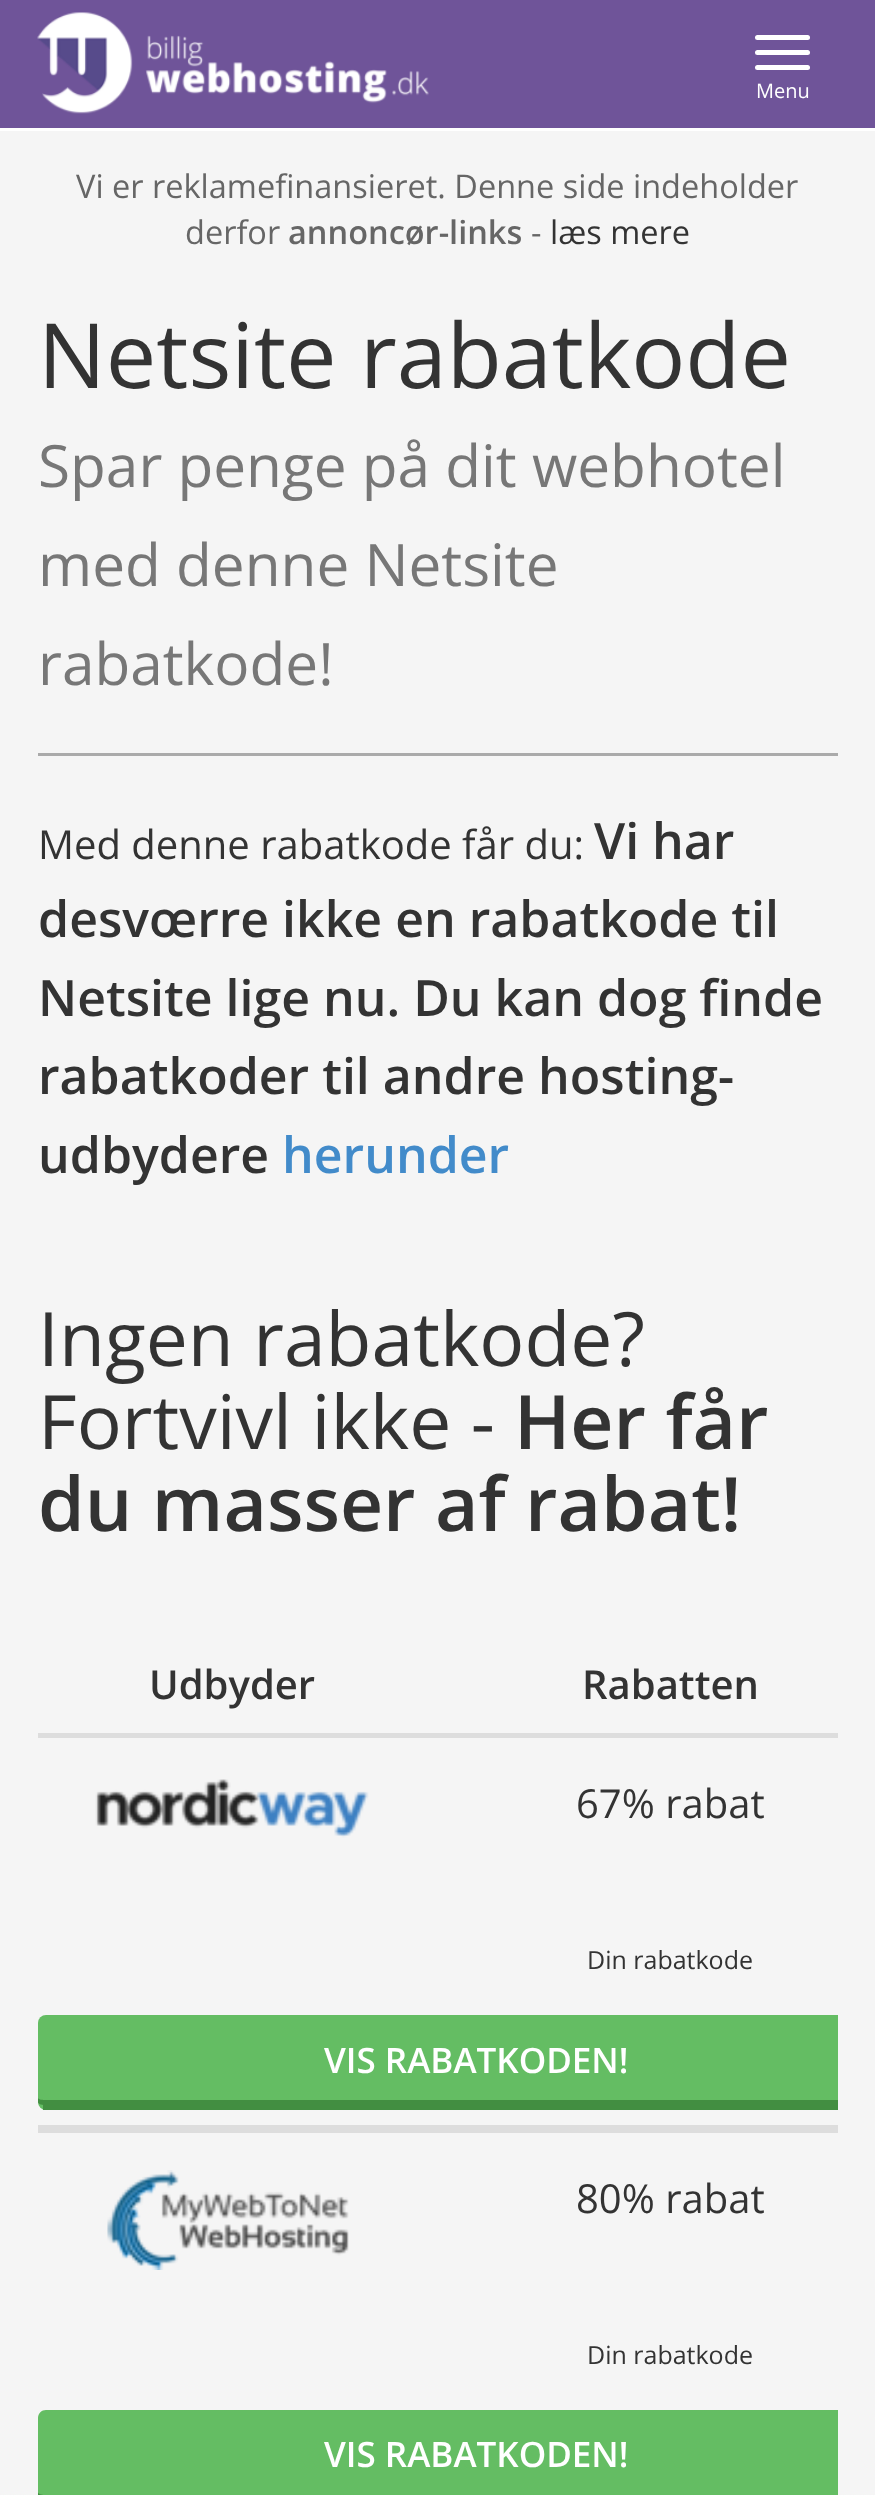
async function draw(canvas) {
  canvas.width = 875;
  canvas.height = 2495;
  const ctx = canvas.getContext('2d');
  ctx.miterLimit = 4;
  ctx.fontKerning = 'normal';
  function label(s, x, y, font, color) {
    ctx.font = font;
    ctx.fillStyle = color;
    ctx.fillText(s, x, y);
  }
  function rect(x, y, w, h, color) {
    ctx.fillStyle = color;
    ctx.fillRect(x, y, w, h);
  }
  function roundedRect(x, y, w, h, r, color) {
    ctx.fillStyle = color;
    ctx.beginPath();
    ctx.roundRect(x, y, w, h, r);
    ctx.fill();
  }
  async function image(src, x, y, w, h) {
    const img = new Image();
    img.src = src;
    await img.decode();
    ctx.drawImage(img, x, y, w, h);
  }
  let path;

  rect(0, 0, 875, 2495, '#f5f5f5');
  rect(0, 0, 875, 128, '#6f5499');
  rect(0, 128, 875, 3, '#fff');
  await image('assets/img1.png', 37, 12, 392, 102);
  roundedRect(755, 35, 55, 5, 2.5, '#fff');
  roundedRect(755, 50, 55, 5, 2.5, '#fff');
  roundedRect(755, 65, 55, 5, 2.5, '#fff');
  label('Menu', 756, 98, '20px Open Sans', '#fff');
  label('Vi er reklamefinansieret. Denne side indeholder', 76, 198, '32.5px Open Sans', '#666');
  label('derfor', 185, 244, '32.5px Open Sans', '#666');
  label('annoncør-links', 288, 244, '600 32.5px Open Sans', '#666');
  label('-', 531, 244, '32.5px Open Sans', '#666');
  label('læs mere', 550, 244, '32.5px Open Sans', '#333');
  label('Netsite rabatkode', 38, 388, '90px Open Sans', '#333');
  label('Spar penge på dit webhotel', 38, 487, '58.5px Open Sans', '#777');
  label('med denne Netsite', 38, 586, '58.5px Open Sans', '#777');
  label('rabatkode!', 38, 685, '58.5px Open Sans', '#777');
  rect(38, 753, 800, 3, '#aaa');
  label('Med denne rabatkode får du:', 38, 859, '40px Open Sans', '#333');
  label('Vi har', 594, 859, '600 50px Open Sans', '#333');
  label('desvœrre ikke en rabatkode til', 38, 937, '600 50px Open Sans', '#333');
  label('Netsite lige nu. Du kan dog finde', 38, 1016, '600 50px Open Sans', '#333');
  label('rabatkoder til andre hosting-', 38, 1094, '600 50px Open Sans', '#333');
  label('udbydere', 38, 1173, '600 50px Open Sans', '#333');
  label('herunder', 282, 1173, '600 50px Open Sans', '#428bca');
  label('Ingen rabatkode?', 38, 1366, '75px Open Sans', '#333');
  label('Fortvivl ikke -', 38, 1449, '75px Open Sans', '#333');
  label('Her får', 514, 1449, '600 75px Open Sans', '#333');
  label('du masser af rabat!', 38, 1531, '600 75px Open Sans', '#333');
  label('Udbyder', 149, 1699, '600 40px Open Sans', '#333');
  rect(38, 1733, 800, 5, '#ddd');
  label('Rabatten', 582, 1699, '600 40px Open Sans', '#333');
  rect(38, 2125, 800, 8, '#ddd');
  await image('assets/img2.png', 95, 1779, 274, 59);
  label('67% rabat', 576, 1818, '40px Open Sans', '#333');
  label('Din rabatkode', 587, 1969, '25px Open Sans', '#333');
  ctx.fillStyle = '#64bd63';
  ctx.beginPath();
  ctx.roundRect(38, 2015, 800, 95, [8, 0, 0, 8]);
  ctx.fill();
  ctx.save();
  ctx.beginPath();
  ctx.rect(38, 1620, 800, 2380);
  ctx.clip();
  ctx.fillStyle = '#428e41';
  path = new Path2D('M38 2020V2022V2102C38 2104 41 2105 45 2105H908C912 2105 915 2104 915 2102V2098C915 2099 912 2100 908 2100H45C41 2100 38 2099 38 2098Z');
  ctx.fill(path);
  ctx.restore();
  rect(43, 2105, 795, 5, '#428e41');
  label('VIS RABATKODEN!', 324, 2073, '600 35px Open Sans', '#fff');
  await image('assets/img3.png', 107, 2170, 242, 100);
  label('80% rabat', 576, 2213, '40px Open Sans', '#333');
  label('Din rabatkode', 587, 2364, '25px Open Sans', '#333');
  ctx.fillStyle = '#64bd63';
  path = new Path2D('M46 2410H838V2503H46C41.5 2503 38 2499.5 38 2495V2418C38 2413.5 41.5 2410 46 2410Z');
  ctx.fill(path);
  ctx.fillStyle = '#428e41';
  path = new Path2D('M38 2415V2418V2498C38 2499 41 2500 45 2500H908C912 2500 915 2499 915 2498V2492C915 2494 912 2495 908 2495H45C41 2495 38 2494 38 2492Z');
  ctx.fill(path);
  label('VIS RABATKODEN!', 324, 2467, '600 35px Open Sans', '#fff');
}

draw(document.querySelector('canvas'));
